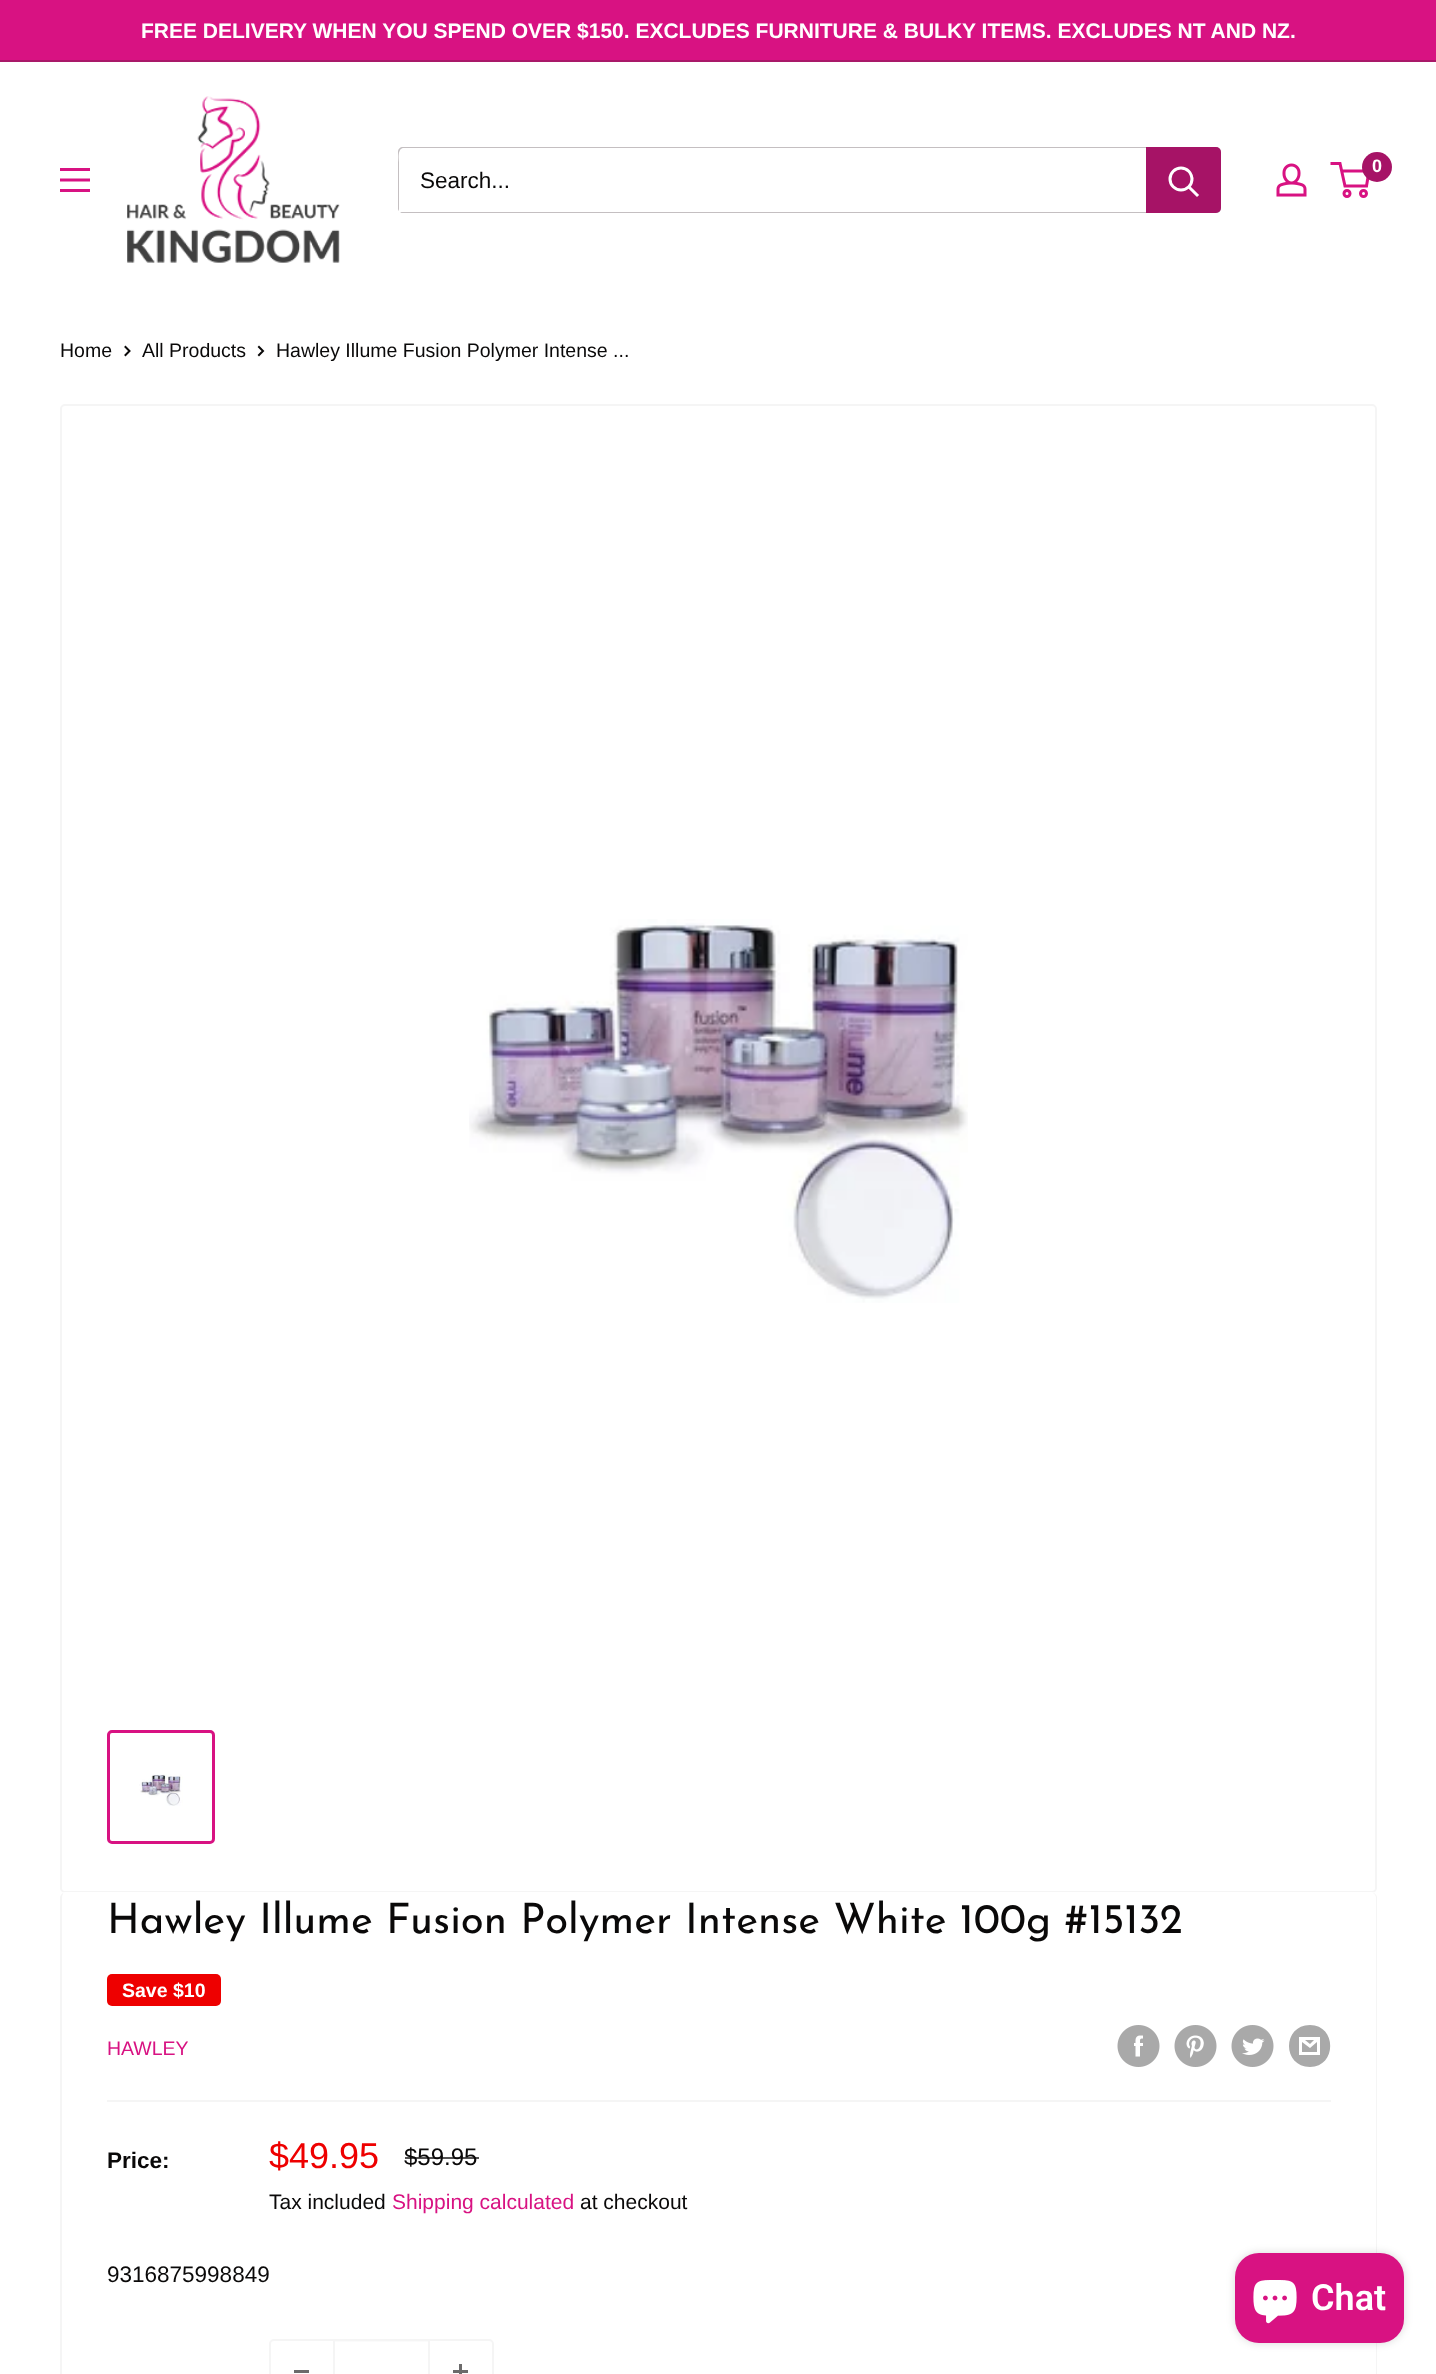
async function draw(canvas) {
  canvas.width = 1436;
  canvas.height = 2374;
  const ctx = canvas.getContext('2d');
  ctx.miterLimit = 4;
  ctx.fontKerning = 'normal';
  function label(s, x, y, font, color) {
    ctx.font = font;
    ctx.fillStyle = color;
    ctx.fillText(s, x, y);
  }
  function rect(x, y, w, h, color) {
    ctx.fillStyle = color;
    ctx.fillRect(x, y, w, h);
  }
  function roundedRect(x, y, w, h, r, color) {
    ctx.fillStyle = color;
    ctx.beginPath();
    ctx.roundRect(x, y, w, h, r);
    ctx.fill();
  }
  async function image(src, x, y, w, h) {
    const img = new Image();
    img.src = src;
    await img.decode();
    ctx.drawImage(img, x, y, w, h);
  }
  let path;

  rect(0, 0, 1436, 2374, '#fff');
  rect(0, 0, 1436, 60, '#d81282');
  rect(0, 60, 1436, 2, '#a91969');
  label('FREE DELIVERY WHEN YOU SPEND OVER $150. EXCLUDES FURNITURE & BULKY ITEMS. EXCLUDES NT AND NZ.', 141, 38, 'bold 21px Liberation Sans', '#fff');
  await image('assets/img1.png', 127, 96, 213, 167);
  await image('assets/img2.png', 1276, 163, 31, 34);
  ctx.beginPath();
  ctx.arc(1347, 193.5, 3, 0, 2 * Math.PI);
  ctx.strokeStyle = '#d81282';
  ctx.lineWidth = 3;
  ctx.stroke();
  ctx.beginPath();
  ctx.arc(1363.5, 193.5, 3, 0, 2 * Math.PI);
  ctx.stroke();
  path = new Path2D('M1341.5 171H1369L1366.5 186H1345L1340 163.5H1330.5');
  ctx.stroke(path);
  ctx.fillStyle = '#a61366';
  ctx.beginPath();
  ctx.arc(1377, 167, 15, 0, 2 * Math.PI);
  ctx.fill();
  label('0', 1372, 172, 'bold 18px Liberation Sans', '#fff');
  await image('assets/img3.png', 60, 168, 30, 24);
  ctx.fillStyle = '#c4bfc1';
  path = new Path2D('M400 212C401 213 402 213 403 213H1216C1219 213 1221 211 1221 208V152C1221 150 1220 149 1219 148L1220 150V207C1220 209 1217 212 1215 212Z');
  ctx.fill(path);
  path = new Path2D('M404 148H1218L1220 149C1219 148 1218 147 1216 147H403C400 147 398 149 398 152V208C398 209 398 210 399 211V162C399 159 397 148 404 148Z');
  ctx.fill(path);
  label('Search...', 420, 188, '22.5px Liberation Sans', '#0a0909');
  ctx.fillStyle = '#a61366';
  ctx.beginPath();
  ctx.roundRect(1146, 147, 75, 66, [0, 5, 5, 0]);
  ctx.fill();
  path = new Path2D('M1197 195L1189.5 187.5');
  ctx.strokeStyle = '#fff';
  ctx.lineCap = 'square';
  ctx.stroke(path);
  ctx.beginPath();
  ctx.arc(1181, 179, 11, 0, 2 * Math.PI);
  ctx.stroke();
  label('Home', 60, 357, '19.5px Liberation Sans', '#0a0909');
  path = new Path2D('M125.5 347L129.5 351L125.5 355');
  ctx.strokeStyle = '#0a0909';
  ctx.lineWidth = 2;
  ctx.stroke(path);
  label('All Products', 142, 357, '19.5px Liberation Sans', '#0a0909');
  path = new Path2D('M259 347L263 351L259 355');
  ctx.stroke(path);
  label('Hawley Illume Fusion Polymer Intense ...', 276, 357, '19.5px Liberation Sans', '#0a0909');
  ctx.beginPath();
  ctx.roundRect(61, 405, 1315, 1487, 4);
  ctx.strokeStyle = '#f5f5f5';
  ctx.stroke();
  await image('assets/img4.png', 469, 919, 499, 384);
  ctx.beginPath();
  ctx.roundRect(108.5, 1731.5, 105, 111, 3.5);
  ctx.strokeStyle = '#d81282';
  ctx.lineWidth = 3;
  ctx.stroke();
  await image('assets/img5.png', 139, 1774, 44, 32);
  ctx.fillStyle = '#fff';
  path = new Path2D('M65 1892C62 1892 60 1895 60 1898C60 1895 62 1893 64 1893H1372C1375 1893 1377 1895 1377 1898C1377 1895 1375 1892 1372 1892Z');
  ctx.fill(path);
  ctx.fillStyle = '#f5f5f5';
  path = new Path2D('M64 1893H1372C1375 1893 1377 1895 1377 1898V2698C1377 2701 1375 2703 1372 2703H64C62 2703 60 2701 60 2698V1898C60 1895 62 1893 64 1893ZM64 1893H1372C1374 1893 1376 1895 1376 1898V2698C1376 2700 1374 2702 1372 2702H64C63 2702 62 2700 62 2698V1898C62 1895 63 1893 64 1893Z');
  ctx.fill(path, 'evenodd');
  label('Hawley Illume Fusion Polymer Intense White 100g #15132', 107, 1933, '100 42px Josefin Sans', '#0a0909');
  roundedRect(107, 1974, 114, 32, 5, '#e00');
  label('Save $10', 122, 1997, 'bold 19.5px Liberation Sans', '#fff');
  label('HAWLEY', 107, 2055, '19.5px Liberation Sans', '#d81282');
  await image('assets/img6.png', 1117, 2025, 43, 42);
  await image('assets/img7.png', 1174, 2025, 43, 42);
  await image('assets/img8.png', 1231, 2025, 43, 42);
  ctx.fillStyle = '#a9a9a9';
  path = new Path2D('M1310 2067C1282 2067 1282 2025 1310 2025C1337 2025 1337 2067 1310 2067ZM1305 2040H1314L1310 2044ZM1317 2042V2052H1302V2042L1310 2048ZM1320 2037H1299V2055H1320Z');
  ctx.fill(path);
  rect(107, 2100, 1224, 2, '#f5f5f5');
  label('Price:', 107, 2168, 'bold 22.5px Liberation Sans', '#0a0909');
  label('$49.95', 269, 2168, '36px Liberation Sans', '#e00');
  label('$59.95', 404, 2165, '24px Liberation Sans', '#0a0909');
  rect(405, 2157, 74, 2, '#0a0909b3');
  label('Tax included', 269, 2209, '21px Liberation Sans', '#0a0909');
  label('Shipping calculated', 392, 2209, '21px Liberation Sans', '#d81282');
  label('at checkout', 580, 2209, '21px Liberation Sans', '#0a0909');
  label('9316875998849', 107, 2282, '22.5px Liberation Sans', '#0a0909');
  ctx.beginPath();
  ctx.roundRect(270, 2340, 223, 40, 4);
  ctx.strokeStyle = '#f5f5f5';
  ctx.lineWidth = 2;
  ctx.stroke();
  rect(294, 2370, 15, 3, '#6c6b6b');
  rect(335, 2341, 93, 1, '#f5f5f566');
  rect(428, 2340, 2, 34, '#f5f5f5');
  rect(333, 2340, 2, 34, '#f5f5f5');
  await image('assets/img9.png', 453, 2364, 15, 10);
  ctx.fillStyle = '#00000026';
  ctx.filter = 'blur(4px)';
  ctx.beginPath();
  ctx.roundRect(1235, 2253, 169, 90, 24);
  ctx.fill();
  ctx.filter = 'none';
  roundedRect(1235, 2253, 169, 90, 24, '#d81282');
  await image('assets/img10.png', 1253, 2280, 44, 44);
  label('Chat', 1311, 2310, '600 36px Roboto', '#fff');
}

draw(document.querySelector('canvas'));
